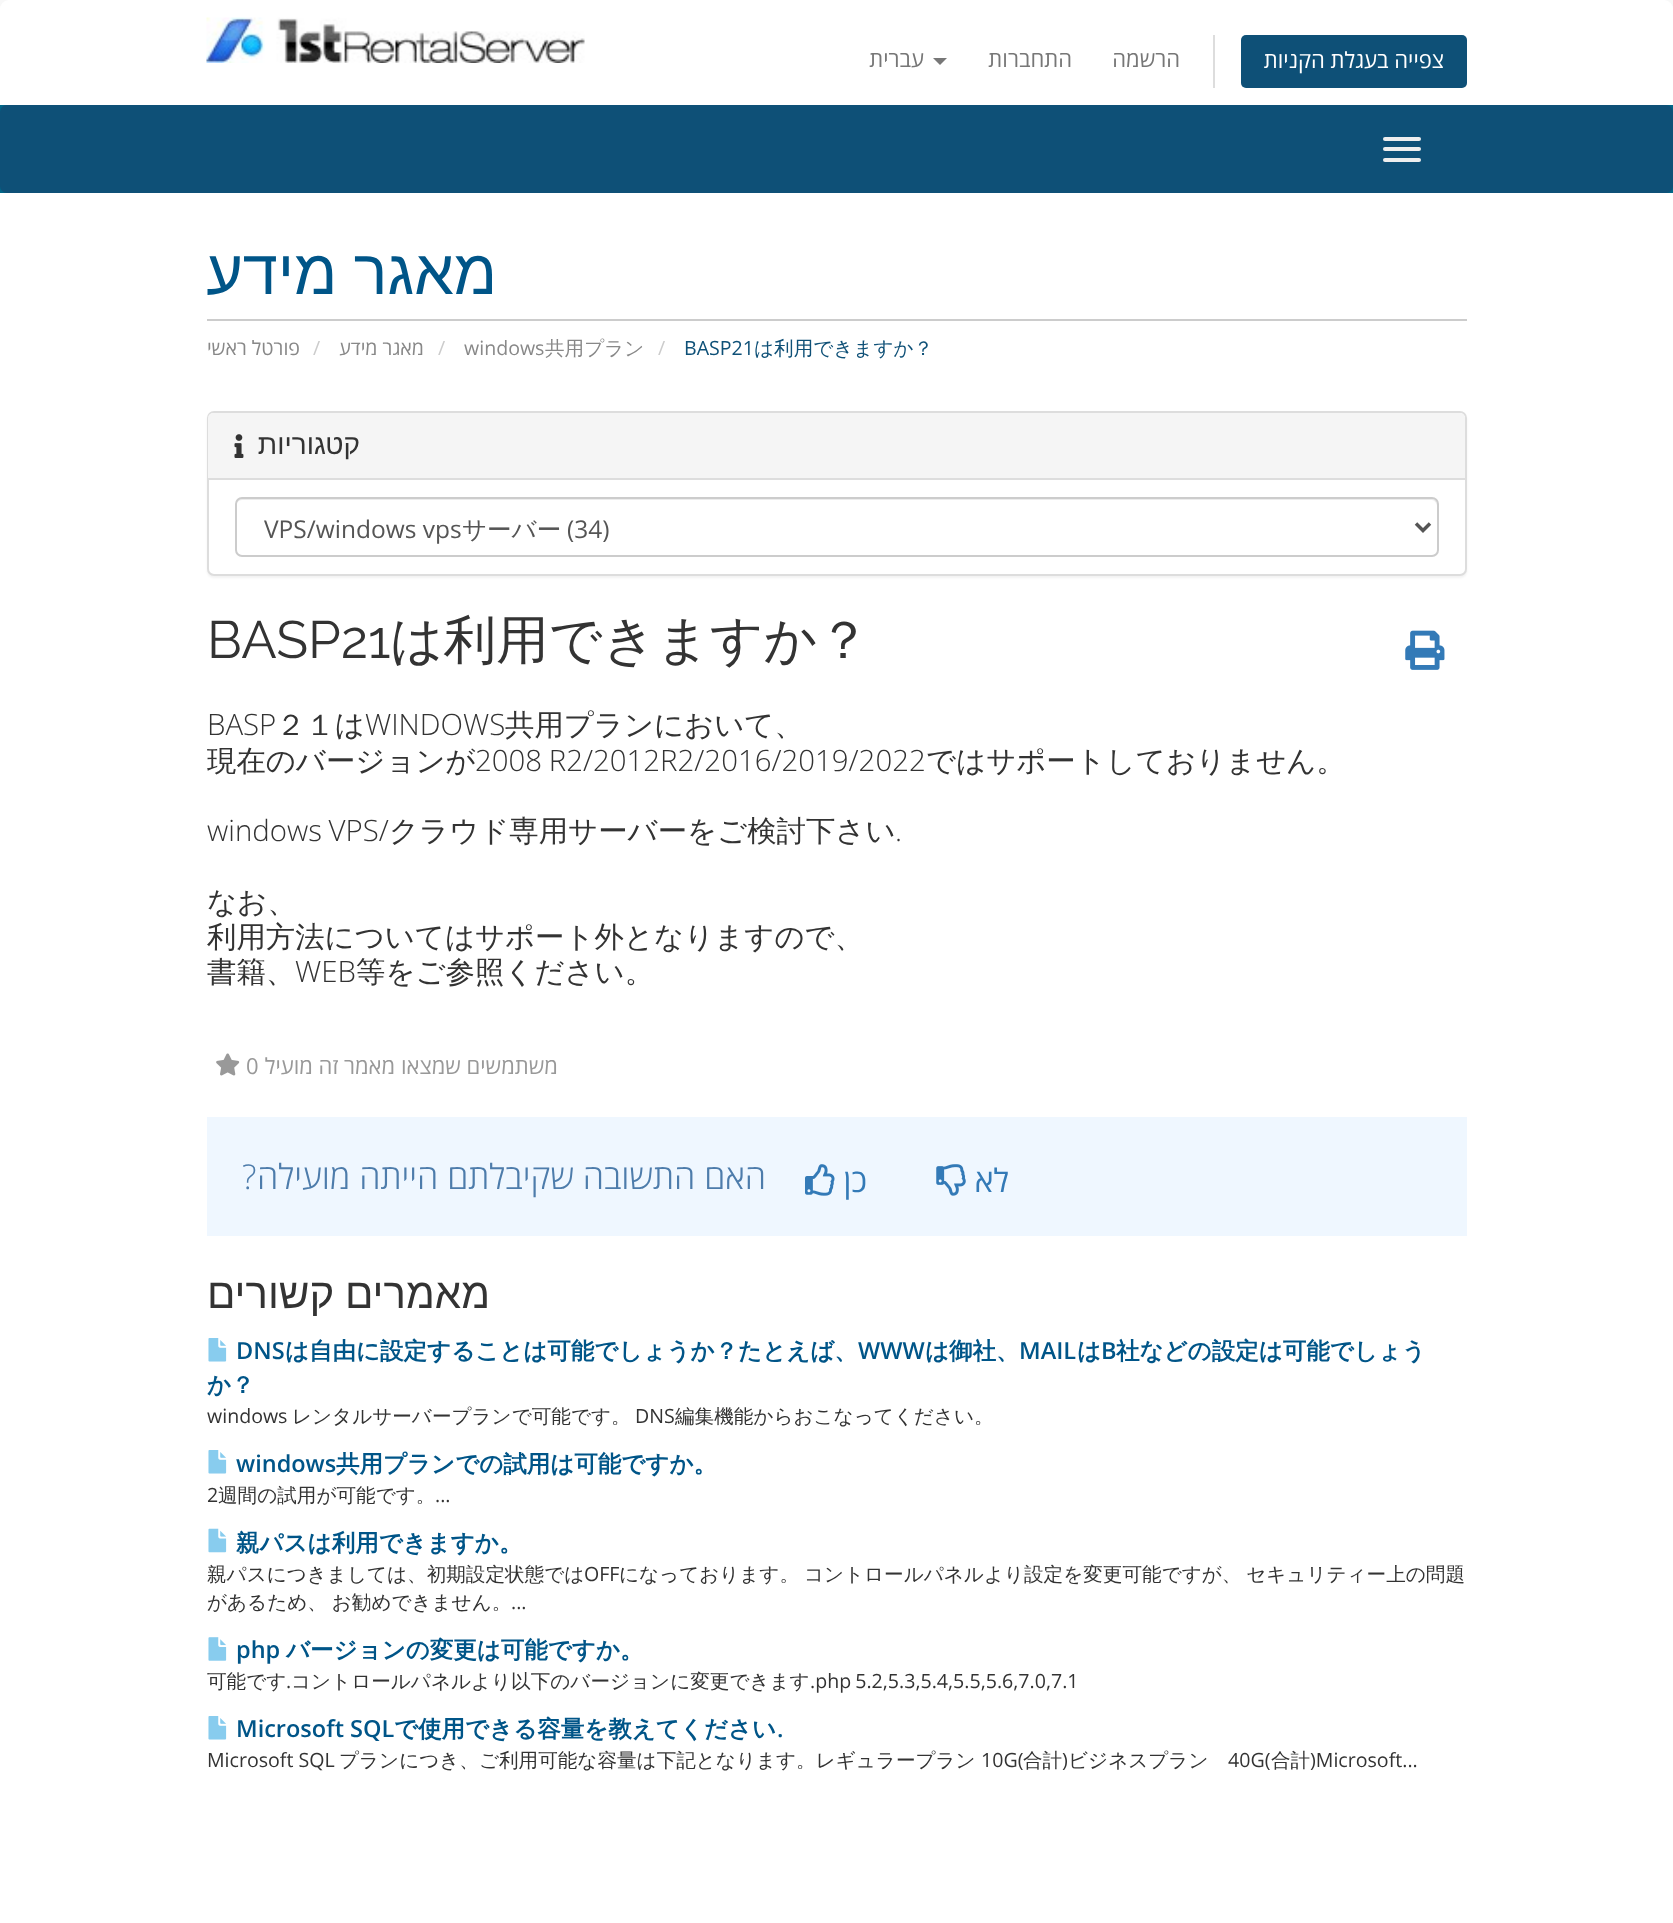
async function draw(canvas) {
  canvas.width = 1673;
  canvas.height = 1923;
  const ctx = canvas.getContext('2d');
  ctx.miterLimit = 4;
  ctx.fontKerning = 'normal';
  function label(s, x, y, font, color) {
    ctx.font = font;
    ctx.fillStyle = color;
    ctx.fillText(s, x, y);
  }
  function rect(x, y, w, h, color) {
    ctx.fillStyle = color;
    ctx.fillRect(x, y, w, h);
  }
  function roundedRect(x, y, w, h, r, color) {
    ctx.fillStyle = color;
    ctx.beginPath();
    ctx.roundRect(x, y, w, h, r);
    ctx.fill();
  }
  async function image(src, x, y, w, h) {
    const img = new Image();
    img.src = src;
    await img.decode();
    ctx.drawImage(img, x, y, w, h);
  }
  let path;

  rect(0, 0, 1673, 1923, '#f8f8f8');
  ctx.fillStyle = '#fff';
  ctx.beginPath();
  ctx.roundRect(0, 0, 1673, 105, [9, 9, 0, 0]);
  ctx.fill();
  await image('assets/img1.png', 206, 17, 379, 46);
  ctx.direction = 'rtl';
  label('עברית', 924, 67, '22px Open Sans', '#777');
  path = new Path2D('M933 58H947L940 65Z');
  ctx.fill(path);
  label('התחברות', 1072, 67, '22px Open Sans', '#777');
  label('הרשמה', 1180, 67, '22px Open Sans', '#777');
  rect(1213, 35, 2, 53, '#ddd');
  roundedRect(1241, 35, 226, 53, 5, '#0e5077');
  label('צפייה בעגלת הקניות', 1444, 68, '22px Open Sans', '#fff');
  rect(0, 105, 1673, 88, '#006687');
  roundedRect(0, 105, 1673, 88, 7, '#0e5077');
  roundedRect(1383, 137, 38, 4, 2, '#eee');
  roundedRect(1383, 147, 38, 4, 2, '#eee');
  roundedRect(1383, 158, 38, 4, 2, '#eee');
  rect(0, 193, 1673, 1730, '#fff');
  rect(207, 319, 1260, 2, '#ccc');
  ctx.wordSpacing = '-1px';
  label('מאגר מידע', 497, 294, '63px Liberation Sans', '#058');
  ctx.wordSpacing = '0px';
  label('פורטל ראשי', 300, 355, '19.6px Open Sans', '#888');
  ctx.direction = 'ltr';
  label('/', 313, 355, '19.6px Open Sans', '#ccc');
  ctx.direction = 'rtl';
  label('מאגר מידע', 424, 355, '19.6px Open Sans', '#888');
  ctx.direction = 'ltr';
  label('/', 438, 355, '19.6px Open Sans', '#ccc');
  label('windows', 464, 355, '19.6px Open Sans', '#888');
  label('共用プラン', 545, 355, '500 19.6px WenQuanYi Zen Hei', '#888');
  label('/', 658, 355, '19.6px Open Sans', '#ccc');
  label('BASP21', 684, 355, '19.6px Open Sans', '#0e5077');
  label('は利用できますか？', 754, 355, '500 19.6px WenQuanYi Zen Hei', '#0e5077');
  ctx.fillStyle = '#0000000d';
  ctx.filter = 'blur(1px)';
  ctx.beginPath();
  ctx.roundRect(207, 413, 1260, 165, 7);
  ctx.fill();
  ctx.filter = 'none';
  ctx.fillStyle = '#fff';
  ctx.beginPath();
  ctx.roundRect(208, 412, 1258, 163, 6);
  ctx.fill();
  ctx.strokeStyle = '#ddd';
  ctx.lineWidth = 2;
  ctx.stroke();
  ctx.fillStyle = '#f5f5f5';
  ctx.beginPath();
  ctx.roundRect(208, 413, 1257, 67, [5, 5, 0, 0]);
  ctx.fill();
  rect(208, 478, 1257, 2, '#ddd');
  await image('assets/img2.png', 234, 434, 10, 24);
  ctx.direction = 'rtl';
  label('קטגוריות', 360, 454, '28px Liberation Sans', '#333');
  ctx.fillStyle = '#ececec';
  path = new Path2D('M242 500H1432C1434 500 1437 503 1437 506V504C1437 501 1435 499 1432 499H241C238 499 236 501 236 504V506C236 503 239 500 242 500Z');
  ctx.fill(path);
  ctx.beginPath();
  ctx.roundRect(236, 498, 1202, 58, 6);
  ctx.strokeStyle = '#ccc';
  ctx.stroke();
  path = new Path2D('M1416 523.5L1423 530.5L1430 523.5');
  ctx.strokeStyle = '#555';
  ctx.lineWidth = 3.5;
  ctx.stroke(path);
  ctx.direction = 'ltr';
  label('VPS/windows vps', 264, 538, '24.5px Open Sans', '#555');
  label('サーバー', 462, 538, '500 24.5px WenQuanYi Zen Hei', '#555');
  label('(34)', 567, 538, '24.5px Open Sans', '#555');
  label('BASP21', 207, 658, '52.5px Raleway', '#333');
  label('は利用できますか？', 390, 658, '500 52.5px WenQuanYi Zen Hei', '#333');
  await image('assets/img3.png', 1405, 630, 40, 40);
  label('BASP', 207, 735, '300 29.4px Open Sans', '#333');
  label('２１は', 276, 735, '500 29.4px WenQuanYi Zen Hei', '#333');
  label('WINDOWS', 365, 735, '300 29.4px Open Sans', '#333');
  label('共用プランにおいて、', 505, 735, '500 29.4px WenQuanYi Zen Hei', '#333');
  label('現在のバージョンが', 207, 771, '500 29.4px WenQuanYi Zen Hei', '#333');
  ctx.wordSpacing = '-1px';
  label('2008 R2/2012R2/2016/2019/2022', 475, 771, '300 29.4px Open Sans', '#333');
  ctx.wordSpacing = '0px';
  label('ではサポートしておりません。', 926, 771, '500 29.4px WenQuanYi Zen Hei', '#333');
  ctx.wordSpacing = '-1px';
  label('windows VPS/', 207, 841, '300 29.4px Open Sans', '#333');
  ctx.wordSpacing = '0px';
  label('クラウド専用サーバーをご検討下さい', 389, 841, '500 29.4px WenQuanYi Zen Hei', '#333');
  label('.', 895, 841, '300 29.4px Open Sans', '#333');
  label('なお、', 207, 912, '500 29.4px WenQuanYi Zen Hei', '#333');
  label('利用方法についてはサポート外となりますので、', 207, 947, '500 29.4px WenQuanYi Zen Hei', '#333');
  label('書籍、', 207, 982, '500 29.4px WenQuanYi Zen Hei', '#333');
  label('WEB', 295, 982, '300 29.4px Open Sans', '#333');
  label('等をご参照ください。', 356, 982, '500 29.4px WenQuanYi Zen Hei', '#333');
  await image('assets/img4.png', 216, 1053, 24, 23);
  label('0', 246, 1074, '22px Open Sans', '#999');
  ctx.direction = 'rtl';
  label('משתמשים שמצאו מאמר זה מועיל', 558, 1074, '22px Open Sans', '#999');
  rect(207, 1117, 1260, 119, '#eff7ff');
  ctx.direction = 'ltr';
  label('?', 242, 1189, '300 34.25px Open Sans', '#4d7cab');
  ctx.direction = 'rtl';
  label('האם התשובה שקיבלתם הייתה מועילה', 766, 1189, '300 34.25px Open Sans', '#4d7cab');
  await image('assets/img5.png', 805, 1164, 30, 32);
  label('כן', 867, 1192, '32px Open Sans', '#337ab7');
  await image('assets/img6.png', 936, 1164, 30, 32);
  label('לא', 1009, 1192, '32px Open Sans', '#337ab7');
  ctx.wordSpacing = '-1px';
  label('מאמרים קשורים', 490, 1308, '42px Liberation Sans', '#333');
  await image('assets/img7.png', 208, 1338, 19, 24);
  ctx.wordSpacing = '0px';
  ctx.direction = 'ltr';
  label('DNS', 236, 1359, '600 23.5px Open Sans', '#058');
  label('は自由に設定することは可能でしょうか？たとえば、', 285, 1359, 'bold 23.5px WenQuanYi Zen Hei', '#058');
  label('WWW', 858, 1359, '600 23.5px Open Sans', '#058');
  label('は御社、', 925, 1359, 'bold 23.5px WenQuanYi Zen Hei', '#058');
  label('MAIL', 1019, 1359, '600 23.5px Open Sans', '#058');
  label('は', 1077, 1359, 'bold 23.5px WenQuanYi Zen Hei', '#058');
  label('B', 1101, 1359, '600 23.5px Open Sans', '#058');
  label('社などの設定は可能でしょう', 1116, 1359, 'bold 23.5px WenQuanYi Zen Hei', '#058');
  label('か？', 207, 1393, 'bold 23.5px WenQuanYi Zen Hei', '#058');
  label('windows', 207, 1423, '19.6px Open Sans', '#333');
  label('レンタルサーバープランで可能です。', 292, 1423, '500 19.6px WenQuanYi Zen Hei', '#333');
  label('DNS', 635, 1423, '19.6px Open Sans', '#333');
  label('編集機能からおこなってください。', 675, 1423, '500 19.6px WenQuanYi Zen Hei', '#333');
  await image('assets/img7.png', 208, 1450, 19, 24);
  label('windows', 236, 1472, '600 23.5px Open Sans', '#058');
  label('共用プランでの試用は可能ですか。', 336, 1472, 'bold 23.5px WenQuanYi Zen Hei', '#058');
  label('2', 207, 1502, '19.6px Open Sans', '#333');
  label('週間の試用が可能です。', 218, 1502, '500 19.6px WenQuanYi Zen Hei', '#333');
  label('...', 435, 1502, '19.6px Open Sans', '#333');
  await image('assets/img8.png', 208, 1528, 19, 25);
  label('親パスは利用できますか。', 236, 1551, 'bold 23.5px WenQuanYi Zen Hei', '#058');
  label('親パスにつきましては、初期設定状態では', 207, 1581, '500 19.6px WenQuanYi Zen Hei', '#333');
  label('OFF', 584, 1581, '19.6px Open Sans', '#333');
  ctx.wordSpacing = '-1px';
  label('になっております。 コントロールパネルより設定を変更可能ですが、 セキュリティー上の問題', 619, 1581, '500 19.6px WenQuanYi Zen Hei', '#333');
  label('があるため、 お勧めできません。', 207, 1609, '500 19.6px WenQuanYi Zen Hei', '#333');
  ctx.wordSpacing = '0px';
  label('...', 511, 1609, '19.6px Open Sans', '#333');
  await image('assets/img9.png', 208, 1637, 19, 24);
  label('php', 236, 1658, '600 23.5px Open Sans', '#058');
  label('バージョンの変更は可能ですか。', 286, 1658, 'bold 23.5px WenQuanYi Zen Hei', '#058');
  label('可能です', 207, 1688, '500 19.6px WenQuanYi Zen Hei', '#333');
  label('.', 286, 1688, '19.6px Open Sans', '#333');
  label('コントロールパネルより以下のバージョンに変更できます', 291, 1688, '500 19.6px WenQuanYi Zen Hei', '#333');
  ctx.wordSpacing = '-1px';
  label('.php 5.2,5.3,5.4,5.5,5.6,7.0,7.1', 810, 1688, '19.6px Open Sans', '#333');
  await image('assets/img7.png', 208, 1716, 19, 24);
  ctx.wordSpacing = '0px';
  label('Microsoft SQL', 236, 1737, '600 23.5px Open Sans', '#058');
  label('で使用できる容量を教えてください', 394, 1737, 'bold 23.5px WenQuanYi Zen Hei', '#058');
  label('.', 777, 1737, '600 23.5px Open Sans', '#058');
  label('Microsoft SQL', 207, 1767, '19.6px Open Sans', '#333');
  label('プランにつき、ご利用可能な容量は下記となります。レギュラープラン', 339, 1767, '500 19.6px WenQuanYi Zen Hei', '#333');
  label('10G(', 981, 1767, '19.6px Open Sans', '#333');
  label('合計 ビジネスプラン', 1023, 1767, '500 19.6px WenQuanYi Zen Hei', '#333');
  label('40G(', 1228, 1767, '19.6px Open Sans', '#333');
  label('合計', 1271, 1767, '500 19.6px WenQuanYi Zen Hei', '#333');
  label(')Microsoft...', 1310, 1767, '19.6px Open Sans', '#333');
  label(')', 1062, 1767, '19.6px Open Sans', '#333');
}

draw(document.querySelector('canvas'));
